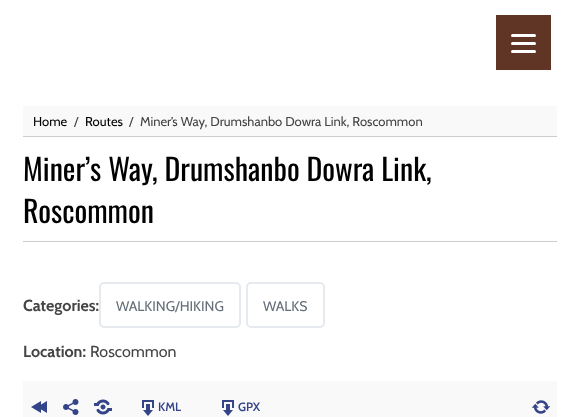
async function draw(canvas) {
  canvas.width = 580;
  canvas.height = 417;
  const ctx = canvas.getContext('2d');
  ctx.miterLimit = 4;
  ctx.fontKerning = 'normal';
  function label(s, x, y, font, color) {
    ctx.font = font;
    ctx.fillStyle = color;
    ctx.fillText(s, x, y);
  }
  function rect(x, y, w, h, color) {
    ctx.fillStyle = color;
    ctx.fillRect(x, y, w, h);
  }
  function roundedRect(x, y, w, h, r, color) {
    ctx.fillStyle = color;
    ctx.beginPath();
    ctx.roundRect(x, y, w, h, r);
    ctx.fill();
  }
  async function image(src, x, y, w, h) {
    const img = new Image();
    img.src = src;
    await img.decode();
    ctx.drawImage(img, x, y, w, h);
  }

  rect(0, 0, 580, 417, '#fff');
  rect(496, 15, 55, 55, '#603525');
  roundedRect(511, 42, 25, 3, 1.5, '#fff');
  roundedRect(511, 34, 25, 3, 1.5, '#fff');
  roundedRect(511, 50, 25, 3, 1.5, '#fff');
  rect(23, 106, 534, 30, '#f9f9f9');
  label('Home', 33, 126, '13px Cabin', '#000');
  label('/', 74, 126, '13px Cabin', '#444');
  label('Routes', 85, 126, '13px Cabin', '#000');
  label('/', 129, 126, '13px Cabin', '#444');
  label('Miner’s Way, Drumshanbo Dowra Link, Roscommon', 140, 126, '13px Cabin', '#444');
  rect(23, 136, 534, 1, '#ccc');
  rect(23, 241, 534, 1, '#ccc');
  label('Miner’s Way, Drumshanbo Dowra Link,', 23, 181, '30px Oswald', '#000');
  label('Roscommon', 23, 223, '30px Oswald', '#000');
  label('Categories:', 23, 311, 'bold 16px Cabin', '#444');
  ctx.beginPath();
  ctx.roundRect(100, 283, 140, 44, 4);
  ctx.strokeStyle = '#e6e9ee';
  ctx.lineWidth = 2;
  ctx.stroke();
  label('WALKING/HIKING', 116, 311, '14px Cabin', '#656d78');
  ctx.beginPath();
  ctx.roundRect(247, 283, 77, 44, 4);
  ctx.stroke();
  label('WALKS', 263, 311, '14px Cabin', '#656d78');
  label('Location:', 23, 357, 'bold 16px Cabin', '#444');
  label('Roscommon', 90, 357, '16px Cabin', '#444');
  rect(23, 381, 534, 36, '#f9f9f9');
  await image('assets/img1.png', 31, 401, 16, 12);
  await image('assets/img2.png', 63, 399, 16, 16);
  await image('assets/img3.png', 94, 399, 18, 16);
  await image('assets/img4.png', 142, 400, 12, 16);
  label('KML', 158, 411, '600 12px Cabin', '#348');
  await image('assets/img4.png', 222, 400, 12, 16);
  label('GPX', 238, 411, '600 12px Cabin', '#348');
  await image('assets/img5.png', 531, 400, 20, 14);
}

draw(document.querySelector('canvas'));
